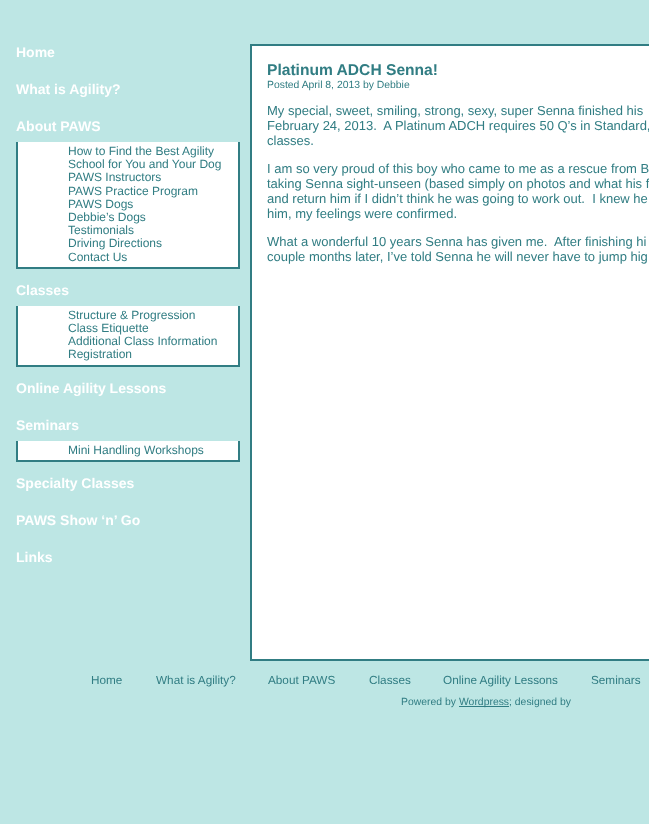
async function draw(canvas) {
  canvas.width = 649;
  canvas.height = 824;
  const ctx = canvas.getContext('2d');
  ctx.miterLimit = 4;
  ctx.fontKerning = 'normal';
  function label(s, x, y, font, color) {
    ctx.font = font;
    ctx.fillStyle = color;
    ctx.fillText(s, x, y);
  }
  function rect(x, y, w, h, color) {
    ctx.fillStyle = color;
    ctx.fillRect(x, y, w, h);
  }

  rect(0, 0, 649, 824, '#bde6e4');
  label('Home', 16, 57, 'bold 14px Liberation Sans', '#fff');
  label('What is Agility?', 16, 94, 'bold 14px Liberation Sans', '#fff');
  label('About PAWS', 16, 131, 'bold 14px Liberation Sans', '#fff');
  rect(18, 142, 220, 125, '#fff');
  rect(238, 142, 2, 127, '#317d83');
  rect(16, 267, 224, 2, '#317d83');
  rect(16, 142, 2, 127, '#317d83');
  label('How to Find the Best Agility', 68, 155, '12px Liberation Sans', '#317d83');
  label('School for You and Your Dog', 68, 168, '12px Liberation Sans', '#317d83');
  label('PAWS Instructors', 68, 181, '12px Liberation Sans', '#317d83');
  label('PAWS Practice Program', 68, 195, '12px Liberation Sans', '#317d83');
  label('PAWS Dogs', 68, 208, '12px Liberation Sans', '#317d83');
  label('Debbie’s Dogs', 68, 221, '12px Liberation Sans', '#317d83');
  label('Testimonials', 68, 234, '12px Liberation Sans', '#317d83');
  label('Driving Directions', 68, 247, '12px Liberation Sans', '#317d83');
  label('Contact Us', 68, 261, '12px Liberation Sans', '#317d83');
  label('Classes', 16, 295, 'bold 14px Liberation Sans', '#fff');
  rect(18, 306, 220, 59, '#fff');
  rect(238, 306, 2, 61, '#317d83');
  rect(16, 365, 224, 2, '#317d83');
  rect(16, 306, 2, 61, '#317d83');
  label('Structure & Progression', 68, 319, '12px Liberation Sans', '#317d83');
  label('Class Etiquette', 68, 332, '12px Liberation Sans', '#317d83');
  label('Additional Class Information', 68, 345, '12px Liberation Sans', '#317d83');
  label('Registration', 68, 358, '12px Liberation Sans', '#317d83');
  label('Online Agility Lessons', 16, 393, 'bold 14px Liberation Sans', '#fff');
  label('Seminars', 16, 430, 'bold 14px Liberation Sans', '#fff');
  rect(18, 441, 220, 19, '#fff');
  rect(238, 441, 2, 21, '#317d83');
  rect(16, 460, 224, 2, '#317d83');
  rect(16, 441, 2, 21, '#317d83');
  label('Mini Handling Workshops', 68, 454, '12px Liberation Sans', '#317d83');
  label('Specialty Classes', 16, 488, 'bold 14px Liberation Sans', '#fff');
  label('PAWS Show ‘n’ Go', 16, 525, 'bold 14px Liberation Sans', '#fff');
  label('Links', 16, 562, 'bold 14px Liberation Sans', '#fff');
  ctx.beginPath();
  ctx.rect(251, 45, 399, 615);
  ctx.fill();
  ctx.strokeStyle = '#317d83';
  ctx.lineWidth = 2;
  ctx.stroke();
  label('Platinum ADCH Senna!', 267, 75, 'bold 15.6px Liberation Sans', '#317d83');
  label('Posted April 8, 2013 by Debbie', 267, 88, '10.4px Liberation Sans', '#317d83');
  label('My special, sweet, smiling, strong, sexy, super Senna finished his', 267, 115, '13px Liberation Sans', '#317d83');
  label('February 24, 2013.  A Platinum ADCH requires 50 Q’s in Standard,', 267, 130, '13px Liberation Sans', '#317d83');
  label('classes.', 267, 145, '13px Liberation Sans', '#317d83');
  label('I am so very proud of this boy who came to me as a rescue from B', 267, 173, '13px Liberation Sans', '#317d83');
  label('taking Senna sight-unseen (based simply on photos and what his f', 267, 188, '13px Liberation Sans', '#317d83');
  label('and return him if I didn’t think he was going to work out.  I knew he', 267, 203, '13px Liberation Sans', '#317d83');
  label('him, my feelings were confirmed.', 267, 218, '13px Liberation Sans', '#317d83');
  label('What a wonderful 10 years Senna has given me.  After finishing hi', 267, 246, '13px Liberation Sans', '#317d83');
  label('couple months later, I’ve told Senna he will never have to jump hig', 267, 261, '13px Liberation Sans', '#317d83');
  label('Home', 91, 684, '11.75px Liberation Sans', '#317d83');
  label('What is Agility?', 156, 684, '11.75px Liberation Sans', '#317d83');
  label('About PAWS', 268, 684, '11.75px Liberation Sans', '#317d83');
  label('Classes', 369, 684, '11.75px Liberation Sans', '#317d83');
  label('Online Agility Lessons', 443, 684, '11.75px Liberation Sans', '#317d83');
  label('Seminars', 591, 684, '11.75px Liberation Sans', '#317d83');
  label('Powered by', 401, 705, '10.4px Liberation Sans', '#317d83');
  rect(459, 706, 50, 1, '#317d83');
  label('Wordpress; designed by', 459, 705, '10.4px Liberation Sans', '#317d83');
}

draw(document.querySelector('canvas'));
